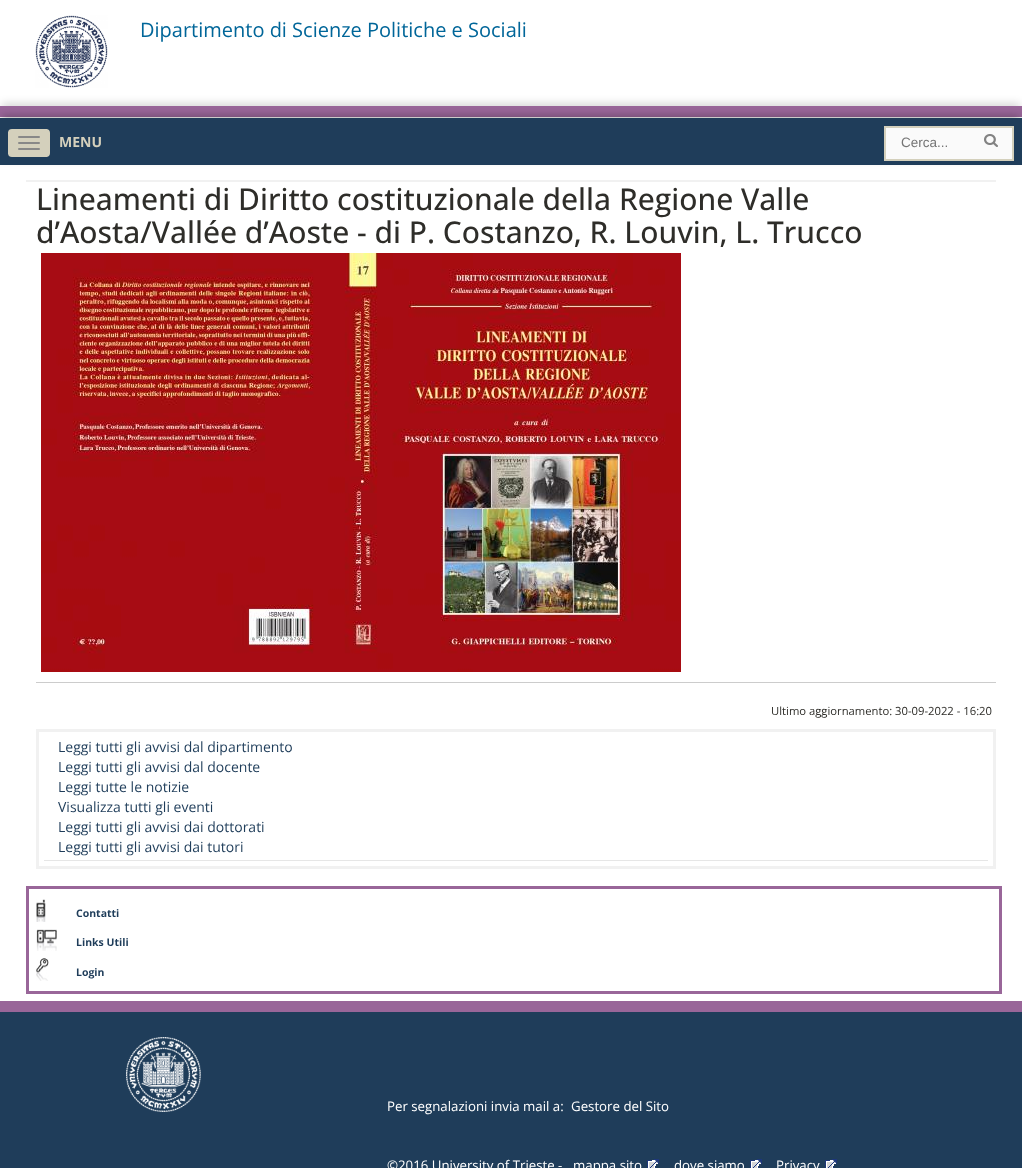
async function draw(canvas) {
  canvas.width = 1022;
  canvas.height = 1168;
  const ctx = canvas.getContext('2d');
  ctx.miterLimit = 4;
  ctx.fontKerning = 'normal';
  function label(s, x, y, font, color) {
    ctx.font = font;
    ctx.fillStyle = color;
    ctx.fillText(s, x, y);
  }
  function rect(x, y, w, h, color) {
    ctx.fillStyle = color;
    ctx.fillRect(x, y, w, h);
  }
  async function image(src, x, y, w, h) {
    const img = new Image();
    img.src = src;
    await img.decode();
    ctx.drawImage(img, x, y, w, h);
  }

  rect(0, 0, 1022, 1168, '#fff');
  await image('assets/img1.png', 35, 15, 73, 73);
  label('Dipartimento di Scienze Politiche e Sociali', 140, 37, '20px Open Sans', '#069');
  ctx.fillStyle = '#00000033';
  ctx.filter = 'blur(4px)';
  ctx.beginPath();
  ctx.rect(2, 104, 1018, 7);
  ctx.fill();
  ctx.filter = 'none';
  rect(0, 106, 1022, 11, '#969');
  ctx.fillStyle = '#0000004d';
  ctx.filter = 'blur(4px)';
  ctx.beginPath();
  ctx.rect(2, 116, 1018, 43);
  ctx.fill();
  ctx.filter = 'none';
  rect(0, 118, 1022, 47, '#1f3d5a');
  await image('assets/img2.png', 8, 129, 42, 28);
  label('MENU', 59, 147, 'bold 14px Open Sans', '#d4d0bc');
  ctx.fillStyle = '#fafafa';
  ctx.beginPath();
  ctx.rect(885, 127, 128, 33);
  ctx.fill();
  ctx.strokeStyle = '#d4d0bc';
  ctx.lineWidth = 2;
  ctx.stroke();
  label('Cerca...', 901, 147, '13.5px Liberation Sans', '#757575');
  await image('assets/img3.png', 984, 134, 14, 13);
  rect(26, 180, 970, 2, '#f1f1f1');
  label('Lineamenti di Diritto costituzionale della Regione Valle', 36, 210, '500 30px Open Sans', '#2e2d29');
  label('d’Aosta/Vallée d’Aoste - di P. Costanzo, R. Louvin, L. Trucco', 36, 243, '500 30px Open Sans', '#2e2d29');
  rect(36, 682, 960, 1, '#ccc');
  await image('assets/img4.png', 41, 253, 640, 419);
  label('Ultimo aggiornamento: 30-09-2022 - 16:20', 771, 715, '11.25px Open Sans', '#2e2d29');
  ctx.strokeStyle = '#f1f1f1';
  ctx.lineWidth = 3;
  ctx.strokeRect(37.5, 730.5, 957, 137);
  rect(44, 860, 944, 1, '#e6e6e6');
  label('Leggi tutti gli avvisi dal dipartimento', 58, 752, '14px Open Sans', '#1f3d5a');
  label('Leggi tutti gli avvisi dal docente', 58, 772, '14px Open Sans', '#1f3d5a');
  label('Leggi tutte le notizie', 58, 792, '14px Open Sans', '#1f3d5a');
  label('Visualizza tutti gli eventi', 58, 812, '14px Open Sans', '#1f3d5a');
  label('Leggi tutti gli avvisi dai dottorati', 58, 832, '14px Open Sans', '#1f3d5a');
  label('Leggi tutti gli avvisi dai tutori', 58, 852, '14px Open Sans', '#1f3d5a');
  ctx.strokeStyle = '#969';
  ctx.strokeRect(27.5, 887.5, 973, 105);
  await image('assets/img5.png', 36, 899, 10, 23);
  label('Contatti', 76, 917, 'bold 10.5px Open Sans', '#1f3d5a');
  await image('assets/img6.png', 36, 929, 21, 22);
  label('Links Utili', 76, 946, 'bold 10.5px Open Sans', '#1f3d5a');
  await image('assets/img7.png', 36, 958, 13, 23);
  label('Login', 76, 976, 'bold 10.5px Open Sans', '#1f3d5a');
  rect(0, 1012, 1022, 156, '#1f3d5a');
  rect(0, 1001, 1022, 11, '#969');
  await image('assets/img8.png', 126, 1037, 75, 75);
  label('Per segnalazioni invia mail a:', 387, 1111, '13.25px Open Sans', '#fff');
  label('Gestore del Sito', 571, 1111, '13.25px Open Sans', '#fff');
  label('©2016 University of Trieste -', 387, 1170, '13.25px Open Sans', '#fff');
  label('mappa sito', 573, 1170, '13.25px Open Sans', '#fff');
  await image('assets/img9.png', 647, 1159, 12, 9);
  label('dove siamo', 674, 1170, '13.25px Open Sans', '#fff');
  await image('assets/img9.png', 750, 1159, 12, 9);
  label('Privacy', 776, 1170, '13.25px Open Sans', '#fff');
  await image('assets/img9.png', 825, 1159, 12, 9);
}

draw(document.querySelector('canvas'));
